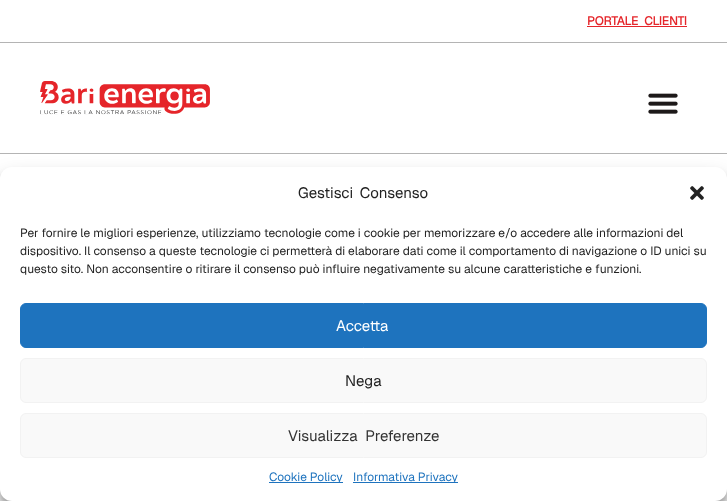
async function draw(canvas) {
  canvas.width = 727;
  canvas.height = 501;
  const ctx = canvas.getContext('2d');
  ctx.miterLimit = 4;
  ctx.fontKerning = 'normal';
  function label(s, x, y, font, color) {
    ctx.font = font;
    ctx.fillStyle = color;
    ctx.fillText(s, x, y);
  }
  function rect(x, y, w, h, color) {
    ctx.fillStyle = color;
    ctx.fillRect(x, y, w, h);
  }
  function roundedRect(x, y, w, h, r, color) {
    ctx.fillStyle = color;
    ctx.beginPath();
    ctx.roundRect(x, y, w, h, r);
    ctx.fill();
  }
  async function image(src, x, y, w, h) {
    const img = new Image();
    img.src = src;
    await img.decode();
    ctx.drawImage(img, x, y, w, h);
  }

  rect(0, 0, 727, 501, '#fff');
  ctx.wordSpacing = '3px';
  label('PORTALE CLIENTI', 587, 25, 'bold 12px Geist', '#e5252a');
  rect(587, 26, 100, 1, '#e5252a');
  rect(0, 42, 727, 1, '#b4b4b4');
  await image('assets/img1.png', 40, 81, 170, 34);
  await image('assets/img2.png', 648, 93, 30, 21);
  rect(0, 153, 727, 1, '#b4b4b4');
  rect(0, 489, 727, 12, '#f5f5f5');
  ctx.fillStyle = '#0000003b';
  ctx.filter = 'blur(3px)';
  ctx.beginPath();
  ctx.roundRect(0, 173, 727, 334, 12);
  ctx.fill();
  ctx.filter = 'none';
  ctx.fillStyle = '#00000030';
  ctx.filter = 'blur(10px)';
  ctx.beginPath();
  ctx.roundRect(0, 177, 727, 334, 12);
  ctx.fill();
  ctx.filter = 'none';
  roundedRect(0, 167, 727, 334, 12, '#fff');
  label('Gestisci Consenso', 298, 198, '15px Geist', '#222');
  await image('assets/img3.png', 690, 186, 14, 14);
  ctx.wordSpacing = '0px';
  label('Per fornire le migliori esperienze, utilizziamo tecnologie come i cookie per memorizzare e/o accedere alle informazioni del', 20, 237, '12px Geist', '#222');
  label('dispositivo. Il consenso a queste tecnologie ci permetterà di elaborare dati come il comportamento di navigazione o ID unici su', 20, 255, '12px Geist', '#222');
  label('questo sito. Non acconsentire o ritirare il consenso può influire negativamente su alcune caratteristiche e funzioni.', 20, 273, '12px Geist', '#222');
  ctx.fillStyle = '#1e73be';
  ctx.beginPath();
  ctx.roundRect(20.5, 303.5, 686, 44, 5.5);
  ctx.fill();
  ctx.strokeStyle = '#1e73be';
  ctx.stroke();
  label('Accetta', 336, 331, '15px Geist', '#fff');
  ctx.fillStyle = '#f9f9f9';
  ctx.beginPath();
  ctx.roundRect(20.5, 358.5, 686, 44, 5.5);
  ctx.fill();
  ctx.strokeStyle = '#f2f2f2';
  ctx.stroke();
  label('Nega', 345, 386, '15px Geist', '#222');
  ctx.fillStyle = '#f9f9f9';
  ctx.beginPath();
  ctx.roundRect(20.5, 413.5, 686, 44, 5.5);
  ctx.fill();
  ctx.stroke();
  ctx.wordSpacing = '4px';
  label('Visualizza Preferenze', 288, 441, '15px Geist', '#333');
  rect(269, 482, 74, 1, '#1e73be');
  ctx.wordSpacing = '0px';
  label('Cookie Policy', 269, 481, '12px Geist', '#1e73be');
  rect(353, 482, 105, 1, '#1e73be');
  label('Informativa Privacy', 353, 481, '12px Geist', '#1e73be');
}

draw(document.querySelector('canvas'));
